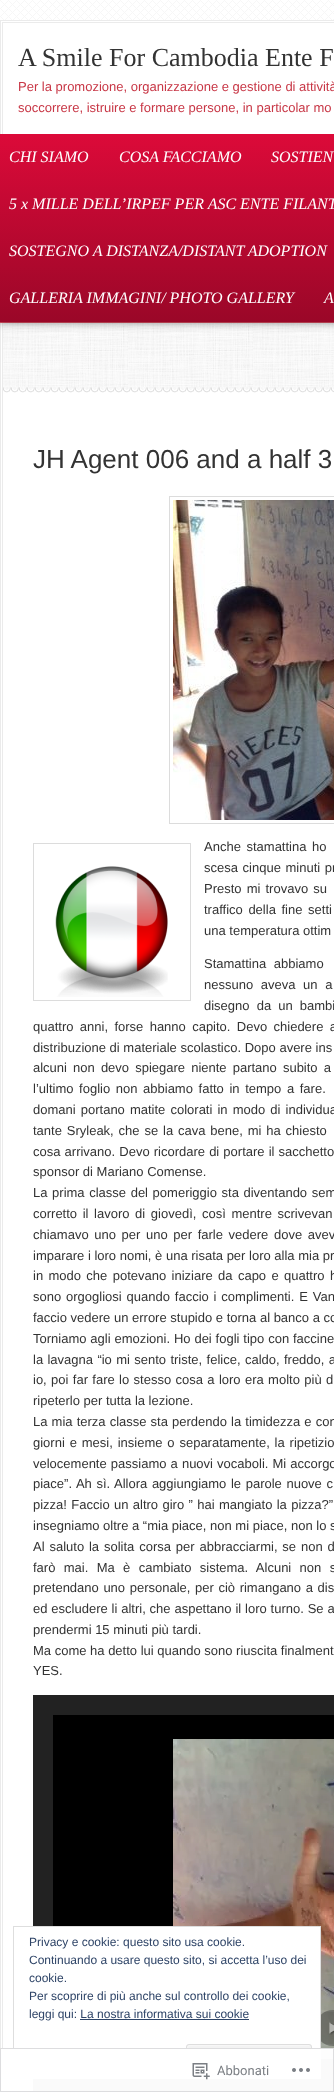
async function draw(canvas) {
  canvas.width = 334;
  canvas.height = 2092;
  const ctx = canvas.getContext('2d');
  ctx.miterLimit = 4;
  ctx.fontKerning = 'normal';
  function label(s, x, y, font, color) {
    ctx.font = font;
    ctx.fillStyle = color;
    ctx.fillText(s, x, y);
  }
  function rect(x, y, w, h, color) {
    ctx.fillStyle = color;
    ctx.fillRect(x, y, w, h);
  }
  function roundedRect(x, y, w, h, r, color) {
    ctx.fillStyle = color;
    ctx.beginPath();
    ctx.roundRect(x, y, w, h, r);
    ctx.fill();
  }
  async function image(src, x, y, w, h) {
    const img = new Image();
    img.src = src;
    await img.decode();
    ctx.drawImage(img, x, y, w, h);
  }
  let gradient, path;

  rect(0, 0, 334, 2092, '#fff');
  await image('assets/img1.png', 0, 0, 334, 20);
  ctx.strokeStyle = '#ebebeb';
  ctx.strokeRect(0.5, 20.5, 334, 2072);
  ctx.strokeRect(2.5, 22.5, 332, 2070);
  label('A Smile For Cambodia Ente F', 18, 66, '26px Liberation Serif', '#333');
  label('Per la promozione, organizzazione e gestione di attività', 18, 91, '13px Liberation Sans', '#c83746');
  label('soccorrere, istruire e formare persone, in particolar mo', 18, 112, '13px Liberation Sans', '#c83746');
  rect(0, 322, 334, 1, '#e35064');
  await image('assets/img2.png', 3, 323, 331, 64);
  ctx.fillStyle = '#00000080';
  ctx.filter = 'blur(5px)';
  ctx.beginPath();
  ctx.rect(-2, 159, 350, 163);
  ctx.fill();
  ctx.filter = 'none';
  gradient = ctx.createLinearGradient(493, 134, 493, 322);
  gradient.addColorStop(0, '#dc0a39');
  gradient.addColorStop(1, '#9a0728');
  ctx.fillStyle = gradient;
  ctx.fillRect(0, 134, 334, 188);
  label('CHI SIAMO', 9, 162, 'italic 16px Liberation Serif', '#fff');
  label('COSA FACCIAMO', 119, 162, 'italic 16px Liberation Serif', '#fff');
  label('SOSTIEN', 271, 162, 'italic 16px Liberation Serif', '#fff');
  label('5 x MILLE DELL’IRPEF PER ASC ENTE FILANT', 9, 209, 'italic 16px Liberation Serif', '#fff');
  label('SOSTEGNO A DISTANZA/DISTANT ADOPTION', 9, 256, 'italic 16px Liberation Serif', '#fff');
  label('GALLERIA IMMAGINI/ PHOTO GALLERY', 9, 303, 'italic 16px Liberation Serif', '#fff');
  label('A', 324, 303, 'italic 16px Liberation Serif', '#fff');
  await image('assets/img3.png', 3, 387, 331, 6);
  label('JH Agent 006 and a half 3', 33, 468, '26px Liberation Sans', '#333');
  ctx.strokeStyle = '#dcdcdc';
  ctx.strokeRect(169.5, 496.5, 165, 327);
  await image('assets/img4.png', 173, 500, 161, 320);
  ctx.strokeRect(33.5, 843.5, 157, 157);
  await image('assets/img5.png', 55, 866, 113, 131);
  ctx.wordSpacing = '2px';
  label('Anche stamattina ho', 204, 851, '13px Liberation Sans', '#333');
  ctx.wordSpacing = '1px';
  label('scesa cinque minuti pr', 204, 872, '13px Liberation Sans', '#333');
  ctx.wordSpacing = '1.5px';
  label('Presto mi trovavo su', 204, 893, '13px Liberation Sans', '#333');
  ctx.wordSpacing = '2px';
  label('traffico della fine setti', 204, 914, '13px Liberation Sans', '#333');
  ctx.wordSpacing = '0px';
  label('una temperatura ottim', 204, 935, '13px Liberation Sans', '#333');
  ctx.wordSpacing = '4px';
  label('Stamattina abbiamo', 204, 968, '13px Liberation Sans', '#333');
  label('nessuno aveva un a', 204, 989, '13px Liberation Sans', '#333');
  ctx.wordSpacing = '3.5px';
  label('disegno da un bambi', 204, 1010, '13px Liberation Sans', '#333');
  ctx.wordSpacing = '2.75px';
  label('quattro anni, forse hanno capito. Devo chiedere a', 33, 1031, '13px Liberation Sans', '#333');
  ctx.wordSpacing = '0px';
  label('distribuzione di materiale scolastico. Dopo avere ins', 33, 1052, '13px Liberation Sans', '#333');
  ctx.wordSpacing = '2.5px';
  label('alcuni non devo spiegare niente partano subito a', 33, 1072, '13px Liberation Sans', '#333');
  ctx.wordSpacing = '2px';
  label('l’ultimo foglio non abbiamo fatto in tempo a fare.', 33, 1093, '13px Liberation Sans', '#333');
  ctx.wordSpacing = '1.5px';
  label('domani portano matite colorati in modo di individua', 33, 1114, '13px Liberation Sans', '#333');
  ctx.wordSpacing = '1.25px';
  label('tante Sryleak, che se la cava bene, mi ha chiesto', 33, 1135, '13px Liberation Sans', '#333');
  ctx.wordSpacing = '0.5px';
  label('cosa arrivano. Devo ricordare di portare il sacchetto', 33, 1156, '13px Liberation Sans', '#333');
  ctx.wordSpacing = '0px';
  label('sponsor di Mariano Comense.', 33, 1176, '13px Liberation Sans', '#333');
  ctx.wordSpacing = '1px';
  label('La prima classe del pomeriggio sta diventando sem', 33, 1197, '13px Liberation Sans', '#333');
  ctx.wordSpacing = '2px';
  label('corretto il lavoro di giovedì, così mentre scrivevan', 33, 1218, '13px Liberation Sans', '#333');
  label('chiamavo uno per uno per farle vedere dove avev', 33, 1239, '13px Liberation Sans', '#333');
  ctx.wordSpacing = '0px';
  label('imparare i loro nomi, è una risata per loro alla mia pr', 33, 1260, '13px Liberation Sans', '#333');
  ctx.wordSpacing = '1.75px';
  label('in modo che potevano iniziare da capo e quattro h', 33, 1280, '13px Liberation Sans', '#333');
  ctx.wordSpacing = '1.25px';
  label('sono orgogliosi quando faccio i complimenti. E Van', 33, 1301, '13px Liberation Sans', '#333');
  ctx.wordSpacing = '0px';
  label('faccio vedere un errore stupido e torna al banco a co', 33, 1322, '13px Liberation Sans', '#333');
  ctx.wordSpacing = '0.25px';
  label('Torniamo agli emozioni. Ho dei fogli tipo con faccine', 33, 1343, '13px Liberation Sans', '#333');
  ctx.wordSpacing = '0.75px';
  label('la lavagna “io mi sento triste, felice, caldo, freddo, a', 33, 1364, '13px Liberation Sans', '#333');
  label('io, poi far fare lo stesso cosa a loro era molto più d', 33, 1384, '13px Liberation Sans', '#333');
  ctx.wordSpacing = '0px';
  label('ripeterlo per tutta la lezione.', 33, 1405, '13px Liberation Sans', '#333');
  ctx.wordSpacing = '0.5px';
  label('La mia terza classe sta perdendo la timidezza e con', 33, 1426, '13px Liberation Sans', '#333');
  ctx.wordSpacing = '1.25px';
  label('giorni e mesi, insieme o separatamente, la ripetizio', 33, 1447, '13px Liberation Sans', '#333');
  ctx.wordSpacing = '0.5px';
  label('velocemente passiamo a nuovi vocaboli. Mi accorgo', 33, 1468, '13px Liberation Sans', '#333');
  ctx.wordSpacing = '1px';
  label('piace”. Ah sì. Allora aggiungiamo le parole nuove c', 33, 1488, '13px Liberation Sans', '#333');
  ctx.wordSpacing = '0.75px';
  label('pizza! Faccio un altro giro ” hai mangiato la pizza?”', 33, 1509, '13px Liberation Sans', '#333');
  ctx.wordSpacing = '0px';
  label('insegniamo oltre a “mia piace, non mi piace, non lo s', 33, 1530, '13px Liberation Sans', '#333');
  ctx.wordSpacing = '1.25px';
  label('Al saluto la solita corsa per abbracciarmi, se non d', 33, 1551, '13px Liberation Sans', '#333');
  ctx.wordSpacing = '4.75px';
  label('farò mai. Ma è cambiato sistema. Alcuni non s', 33, 1572, '13px Liberation Sans', '#333');
  ctx.wordSpacing = '1px';
  label('pretendano uno personale, per ciò rimangano a dis', 33, 1592, '13px Liberation Sans', '#333');
  ctx.wordSpacing = '0.25px';
  label('ed escludere li altri, che aspettano il loro turno. Se a', 33, 1613, '13px Liberation Sans', '#333');
  ctx.wordSpacing = '0px';
  label('prendermi 15 minuti più tardi.', 33, 1634, '13px Liberation Sans', '#333');
  label('Ma come ha detto lui quando sono riuscita finalment', 33, 1655, '13px Liberation Sans', '#333');
  label('YES.', 33, 1675, '13px Liberation Sans', '#333');
  ctx.beginPath();
  ctx.rect(43, 1705, 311, 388);
  ctx.strokeStyle = '#222';
  ctx.lineWidth = 20;
  ctx.stroke();
  rect(53, 1715, 281, 368, '#000');
  await image('assets/img6.png', 173, 1739, 161, 320);
  ctx.fillStyle = '#0000004d';
  ctx.beginPath();
  ctx.arc(333, 2028, 18, 0, 2 * Math.PI);
  ctx.fill();
  await image('assets/img7.png', 329, 2022, 5, 13);
  ctx.strokeStyle = '#ffffff0d';
  ctx.lineWidth = 2;
  ctx.strokeRect(316, 2011, 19, 34);
  rect(33, 1927, 287, 151, '#fff');
  ctx.strokeStyle = '#dedede';
  ctx.lineWidth = 1;
  ctx.strokeRect(13.5, 1926.5, 307, 152);
  label('Privacy e cookie: questo sito usa cookie.', 29, 1946, '12px Liberation Sans', '#2e4467');
  label('Continuando a usare questo sito, si accetta l’uso dei', 29, 1964, '12px Liberation Sans', '#2e4467');
  label('cookie.', 29, 1982, '12px Liberation Sans', '#2e4467');
  label('Per scoprire di più anche sul controllo dei cookie,', 29, 2000, '12px Liberation Sans', '#2e4467');
  label('leggi qui: La nostra informativa sui cookie', 29, 2018, '12px Liberation Sans', '#2e4467');
  rect(80, 2019, 169, 1, '#2e4467');
  roundedRect(186, 2044, 126, 26, 3, '#f3f3f3');
  ctx.fillStyle = '#f7f7f7';
  path = new Path2D('M190 2046H311L309 2045H188L187 2047C187 2050 186 2068 188 2069V2058C188 2056 186 2046 190 2046Z');
  ctx.fill(path);
  ctx.beginPath();
  ctx.roundRect(186.5, 2044.5, 125, 25, 2.5);
  ctx.stroke();
  rect(0, 2048, 334, 44, '#fffffffa');
  ctx.strokeStyle = '#dcdcdefa';
  ctx.strokeRect(0.5, 2048.5, 333, 43);
  await image('assets/img8.png', 192, 2063, 18, 17);
  label('Abbonati', 217, 2075, '13px Roboto', '#7b7f84');
  await image('assets/img9.png', 292, 2068, 18, 4);
}

draw(document.querySelector('canvas'));
